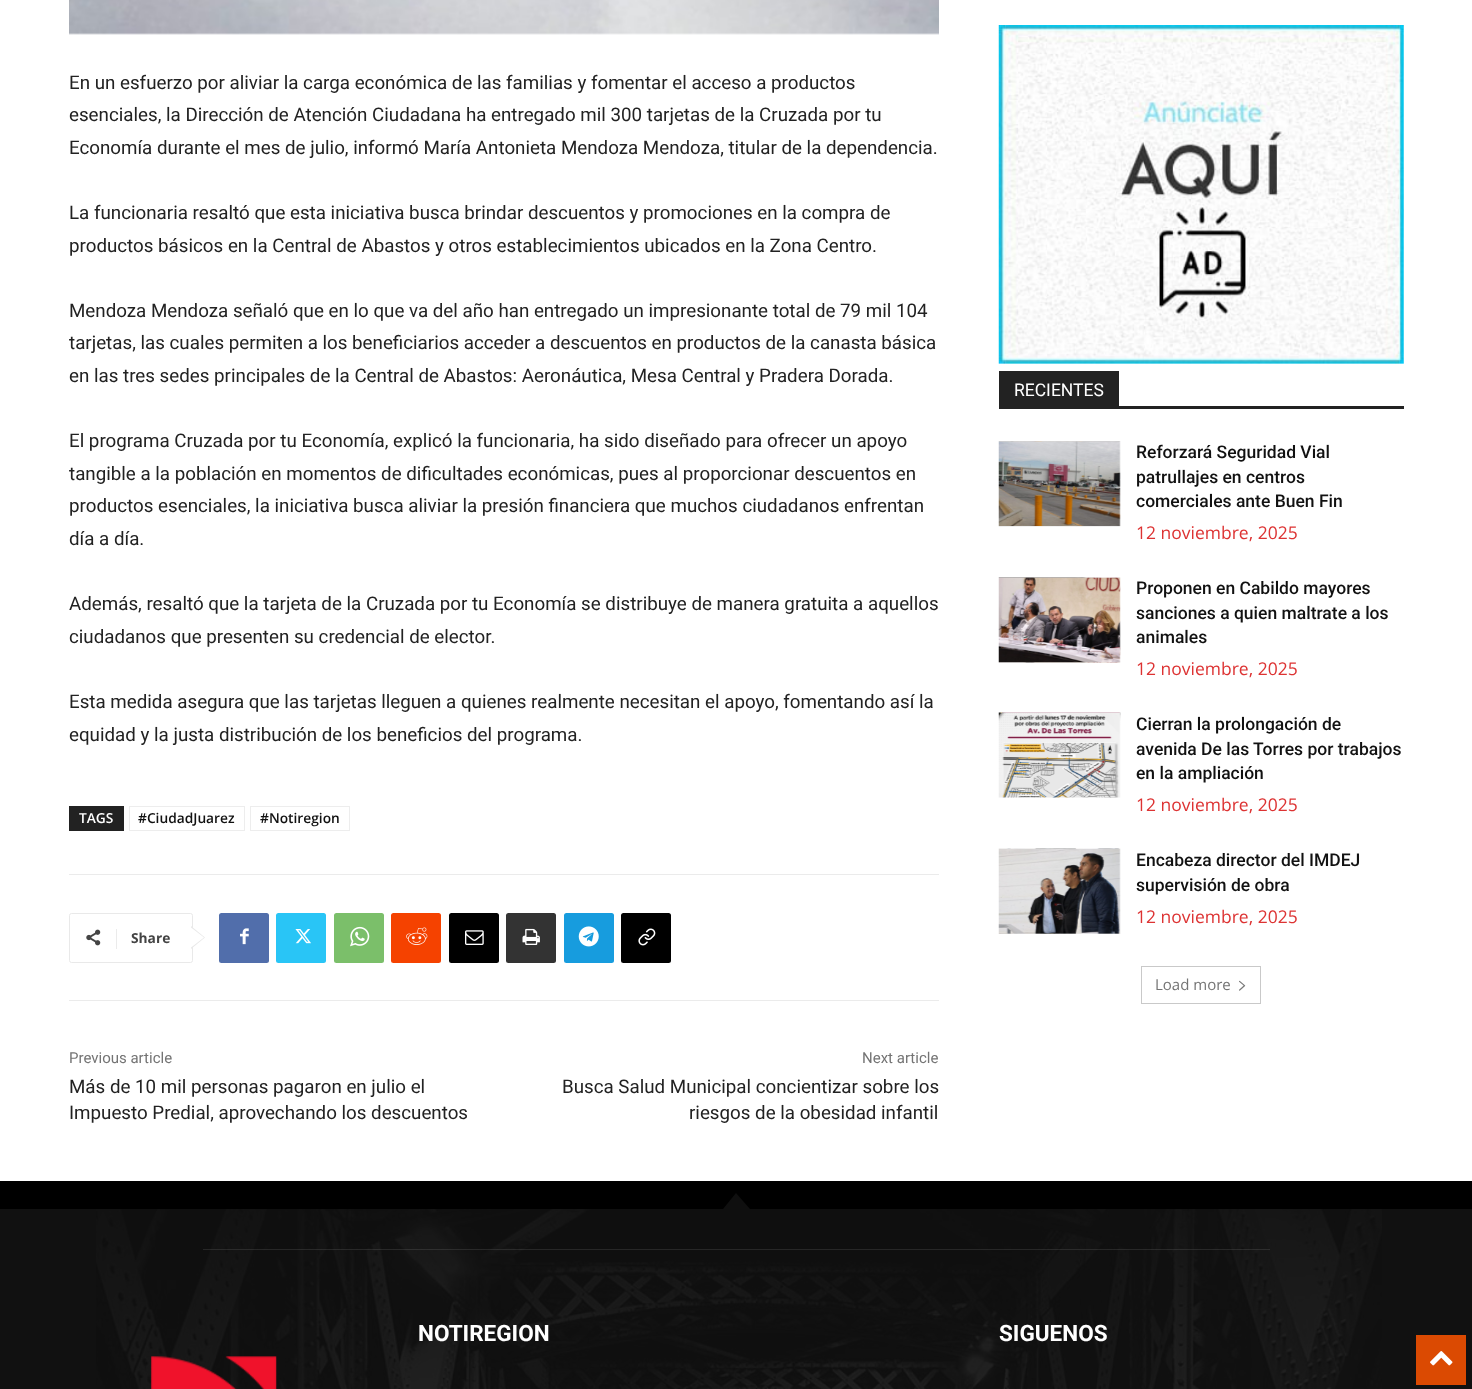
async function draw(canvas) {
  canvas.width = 1472;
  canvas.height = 1389;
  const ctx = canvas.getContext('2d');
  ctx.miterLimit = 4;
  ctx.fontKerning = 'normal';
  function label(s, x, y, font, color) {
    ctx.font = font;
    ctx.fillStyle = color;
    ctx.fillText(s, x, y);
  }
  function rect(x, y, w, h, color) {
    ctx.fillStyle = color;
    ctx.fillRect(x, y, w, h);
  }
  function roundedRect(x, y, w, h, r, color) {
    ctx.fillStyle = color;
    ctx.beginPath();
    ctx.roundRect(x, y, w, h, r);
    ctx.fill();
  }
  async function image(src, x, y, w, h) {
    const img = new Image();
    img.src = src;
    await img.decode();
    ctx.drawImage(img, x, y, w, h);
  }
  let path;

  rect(0, 0, 1472, 1389, '#fff');
  await image('assets/img1.png', 69, 0, 870, 35);
  label('En un esfuerzo por aliviar la carga económica de las familias y fomentar el acceso a productos', 69, 89, '18.75px Roboto', '#222');
  label('esenciales, la Dirección de Atención Ciudadana ha entregado mil 300 tarjetas de la Cruzada por tu', 69, 121, '18.75px Roboto', '#222');
  label('Economía durante el mes de julio, informó María Antonieta Mendoza Mendoza, titular de la dependencia.', 69, 154, '18.75px Roboto', '#222');
  label('La funcionaria resaltó que esta iniciativa busca brindar descuentos y promociones en la compra de', 69, 219, '18.75px Roboto', '#222');
  label('productos básicos en la Central de Abastos y otros establecimientos ubicados en la Zona Centro.', 69, 252, '18.75px Roboto', '#222');
  label('Mendoza Mendoza señaló que en lo que va del año han entregado un impresionante total de 79 mil 104', 69, 317, '18.75px Roboto', '#222');
  label('tarjetas, las cuales permiten a los beneficiarios acceder a descuentos en productos de la canasta básica', 69, 349, '18.75px Roboto', '#222');
  label('en las tres sedes principales de la Central de Abastos: Aeronáutica, Mesa Central y Pradera Dorada.', 69, 382, '18.75px Roboto', '#222');
  label('El programa Cruzada por tu Economía, explicó la funcionaria, ha sido diseñado para ofrecer un apoyo', 69, 447, '18.75px Roboto', '#222');
  label('tangible a la población en momentos de dificultades económicas, pues al proporcionar descuentos en', 69, 480, '18.75px Roboto', '#222');
  label('productos esenciales, la iniciativa busca aliviar la presión financiera que muchos ciudadanos enfrentan', 69, 512, '18.75px Roboto', '#222');
  label('día a día.', 69, 545, '18.75px Roboto', '#222');
  label('Además, resaltó que la tarjeta de la Cruzada por tu Economía se distribuye de manera gratuita a aquellos', 69, 610, '18.75px Roboto', '#222');
  label('ciudadanos que presenten su credencial de elector.', 69, 643, '18.75px Roboto', '#222');
  label('Esta medida asegura que las tarjetas lleguen a quienes realmente necesitan el apoyo, fomentando así la', 69, 708, '18.75px Roboto', '#222');
  label('equidad y la justa distribución de los beneficios del programa.', 69, 741, '18.75px Roboto', '#222');
  rect(69, 806, 55, 25, '#222');
  label('TAGS', 79, 823, '600 13.75px Open Sans', '#fff');
  ctx.strokeStyle = '#ededed';
  ctx.strokeRect(129.5, 806.5, 115, 24);
  label('#CiudadJuarez', 138, 823, '600 13.75px Open Sans', '#111');
  ctx.strokeRect(250.5, 806.5, 99, 24);
  label('#Notiregion', 260, 823, '600 13.75px Open Sans', '#111');
  rect(69, 874, 870, 1, '#ebebeb');
  ctx.beginPath();
  ctx.roundRect(69.5, 913.5, 123, 49, 2);
  ctx.strokeStyle = '#e9e9e9';
  ctx.stroke();
  ctx.fillStyle = '#e9e9e9';
  path = new Path2D('M191 949V926L205 937.5Z');
  ctx.fill(path);
  await image('assets/img2.png', 86, 929, 15, 17);
  rect(116, 929, 1, 20, '#ebebeb');
  label('Share', 131, 943, 'bold 13.75px Open Sans', '#444');
  ctx.fillStyle = '#fff';
  path = new Path2D('M191 947.5V927.5L204 937.5Z');
  ctx.fill(path);
  roundedRect(219, 913, 50, 50, 2.5, '#516eab');
  await image('assets/img3.png', 240, 928, 9, 17);
  roundedRect(276, 913, 50, 50, 2.5, '#29c5f6');
  await image('assets/img4.png', 295, 929, 16, 15);
  roundedRect(334, 913, 50, 50, 2.5, '#7bbf6a');
  await image('assets/img5.png', 350, 926, 20, 21);
  roundedRect(391, 913, 50, 50, 2.5, '#f54200');
  await image('assets/img6.png', 406, 927, 22, 18);
  roundedRect(449, 913, 50, 50, 2.5, '#000');
  await image('assets/img7.png', 465, 930, 19, 15);
  roundedRect(506, 913, 50, 50, 2.5, '#333');
  await image('assets/img8.png', 522, 928, 18, 17);
  roundedRect(564, 913, 50, 50, 2.5, '#179cde');
  await image('assets/img9.png', 578, 926, 21, 21);
  roundedRect(621, 913, 50, 50, 2.5, '#000');
  await image('assets/img10.png', 638, 928, 18, 18);
  rect(69, 1000, 870, 1, '#ebebeb');
  label('Previous article', 69, 1063, '15px Roboto', '#747474');
  label('Más de 10 mil personas pagaron en julio el', 69, 1093, '18.75px Roboto', '#222');
  label('Impuesto Predial, aprovechando los descuentos', 69, 1119, '18.75px Roboto', '#222');
  label('Next article', 862, 1063, '15px Roboto', '#747474');
  label('Busca Salud Municipal concientizar sobre los', 562, 1093, '18.75px Roboto', '#222');
  label('riesgos de la obesidad infantil', 689, 1119, '18.75px Roboto', '#222');
  await image('assets/img11.png', 998, 25, 406, 339);
  rect(999, 406, 405, 3, '#222');
  rect(999, 371, 120, 35, '#222');
  label('RECIENTES', 1014, 396, '17.5px Roboto', '#fff');
  await image('assets/img12.png', 998, 441, 123, 86);
  label('Reforzará Seguridad Vial', 1136, 458, '500 17.5px Roboto', '#111');
  label('patrullajes en centros', 1136, 483, '500 17.5px Roboto', '#111');
  label('comerciales ante Buen Fin', 1136, 507, '500 17.5px Roboto', '#111');
  label('12 noviembre, 2025', 1136, 539, '17.5px Open Sans', '#d33');
  await image('assets/img13.png', 998, 577, 123, 86);
  label('Proponen en Cabildo mayores', 1136, 594, '500 17.5px Roboto', '#111');
  label('sanciones a quien maltrate a los', 1136, 619, '500 17.5px Roboto', '#111');
  label('animales', 1136, 643, '500 17.5px Roboto', '#111');
  label('12 noviembre, 2025', 1136, 675, '17.5px Open Sans', '#d33');
  await image('assets/img14.png', 998, 712, 123, 86);
  label('Cierran la prolongación de', 1136, 730, '500 17.5px Roboto', '#111');
  label('avenida De las Torres por trabajos', 1136, 755, '500 17.5px Roboto', '#111');
  label('en la ampliación', 1136, 779, '500 17.5px Roboto', '#111');
  label('12 noviembre, 2025', 1136, 811, '17.5px Open Sans', '#d33');
  await image('assets/img15.png', 998, 848, 123, 86);
  label('Encabeza director del IMDEJ', 1136, 866, '500 17.5px Roboto', '#111');
  label('supervisión de obra', 1136, 891, '500 17.5px Roboto', '#111');
  label('12 noviembre, 2025', 1136, 923, '17.5px Open Sans', '#d33');
  ctx.strokeStyle = '#c9c9c9';
  ctx.strokeRect(1141.5, 966.5, 119, 37);
  label('Load more', 1155, 990, '15px Open Sans', '#747474');
  await image('assets/img16.png', 1239, 980, 7, 11);
  rect(0, 1193, 1472, 196, '#111');
  await image('assets/img17.png', 96, 1193, 1286, 196);
  ctx.save();
  ctx.beginPath();
  ctx.rect(0, 1181, 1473, 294);
  ctx.clip();
  ctx.fillStyle = '#000';
  path = new Path2D('M0 1092V1209H723L736 1193L750 1209H1472V1092Z');
  ctx.fill(path);
  ctx.restore();
  rect(203, 1249, 1067, 1, '#ffffff1a');
  label('NOTIREGION', 418, 1341, 'bold 22.5px Roboto', '#fff');
  label('SIGUENOS', 999, 1341, 'bold 22.5px Roboto', '#fff');
  await image('assets/img18.png', 151, 1356, 126, 33);
  rect(1416, 1335, 50, 50, '#db4a02');
  await image('assets/img19.png', 1430, 1351, 23, 15);
}

draw(document.querySelector('canvas'));
